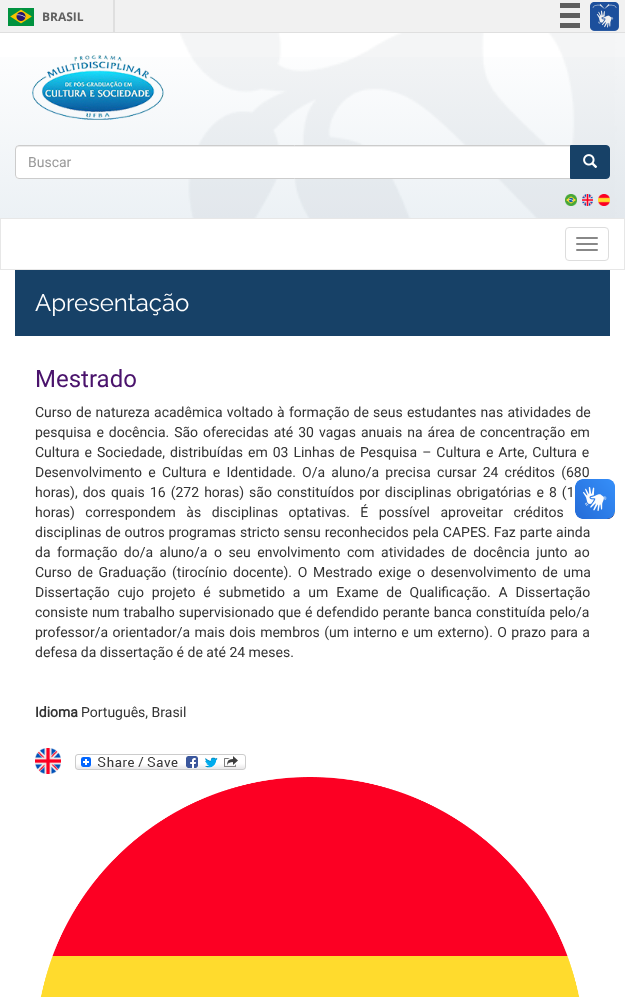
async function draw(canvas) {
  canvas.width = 625;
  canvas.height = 997;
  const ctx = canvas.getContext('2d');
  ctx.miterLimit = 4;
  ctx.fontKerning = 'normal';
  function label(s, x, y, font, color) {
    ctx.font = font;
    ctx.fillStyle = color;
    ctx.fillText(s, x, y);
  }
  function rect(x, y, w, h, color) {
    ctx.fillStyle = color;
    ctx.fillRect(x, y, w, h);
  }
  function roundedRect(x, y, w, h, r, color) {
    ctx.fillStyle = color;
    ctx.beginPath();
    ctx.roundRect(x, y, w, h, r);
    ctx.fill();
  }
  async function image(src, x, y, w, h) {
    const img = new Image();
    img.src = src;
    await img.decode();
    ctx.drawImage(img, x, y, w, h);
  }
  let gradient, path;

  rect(0, 0, 625, 997, '#fff');
  rect(0, 0, 625, 32, '#f1f1f1');
  rect(0, 32, 625, 1, '#dfdfdf');
  rect(113, 0, 2, 32, '#dfdfdf');
  await image('assets/img1.png', 8, 8, 26, 18);
  label('BRASIL', 42, 21, 'bold 12px Open Sans', '#606060');
  rect(560, 3, 20, 5, '#606060');
  rect(560, 13, 20, 5, '#606060');
  rect(560, 23, 20, 5, '#606060');
  await image('assets/img2.png', 590, 2, 29, 29);
  gradient = ctx.createLinearGradient(313, 33, 313, 218);
  gradient.addColorStop(0, '#fff');
  gradient.addColorStop(1, '#ecf1f5');
  ctx.fillStyle = gradient;
  ctx.fillRect(0, 57, 625, 161);
  await image('assets/img3.png', 180, 33, 445, 185);
  await image('assets/img4.png', 32, 55, 132, 65);
  ctx.fillStyle = '#fff';
  ctx.beginPath();
  ctx.roundRect(15, 145, 556, 34, [4, 0, 0, 4]);
  ctx.fill();
  ctx.fillStyle = '#ececec';
  path = new Path2D('M19 147H570V146H19C17 146 16 147 16 149V150C16 148 17 147 19 147Z');
  ctx.fill(path);
  ctx.beginPath();
  ctx.roundRect(15.5, 145.5, 555, 33, [3.5, 0, 0, 3.5]);
  ctx.strokeStyle = '#ccc';
  ctx.stroke();
  label('Buscar', 28, 167, '14px Roboto', '#999');
  ctx.fillStyle = '#174167';
  ctx.beginPath();
  ctx.roundRect(570.5, 145.5, 39, 33, [0, 3.5, 3.5, 0]);
  ctx.fill();
  ctx.strokeStyle = '#174167';
  ctx.stroke();
  await image('assets/img5.png', 583, 154, 15, 14);
  await image('assets/img6.png', 565, 194, 12, 12);
  await image('assets/img7.png', 582, 194, 11, 12);
  await image('assets/img8.png', 598, 194, 12, 12);
  ctx.strokeStyle = '#e7e7e7';
  ctx.strokeRect(0.5, 218.5, 624, 51);
  ctx.beginPath();
  ctx.roundRect(565.5, 227.5, 43, 33, 3.5);
  ctx.strokeStyle = '#ddd';
  ctx.stroke();
  roundedRect(576, 237, 22, 2, 1, '#888');
  roundedRect(576, 243, 22, 2, 1, '#888');
  roundedRect(576, 249, 22, 2, 1, '#888');
  rect(15, 270, 595, 66, '#174167');
  label('Apresentação', 35, 311, '24px Raleway', '#fff');
  label('Mestrado', 35, 387, '24px Roboto', '#4a136c');
  ctx.wordSpacing = '0.75px';
  label('Curso de natureza acadêmica voltado à formação de seus estudantes nas atividades de', 35, 417, '14px Roboto', '#333');
  ctx.wordSpacing = '1.5px';
  label('pesquisa e docência. São oferecidas até 30 vagas anuais na área de concentração em', 35, 437, '14px Roboto', '#333');
  label('Cultura e Sociedade, distribuídas em 03 Linhas de Pesquisa – Cultura e Arte, Cultura e', 35, 457, '14px Roboto', '#333');
  ctx.wordSpacing = '2.75px';
  label('Desenvolvimento e Cultura e Identidade. O/a aluno/a precisa cursar 24 créditos (680', 35, 477, '14px Roboto', '#333');
  ctx.wordSpacing = '1.6px';
  label('horas), dos quais 16 (272 horas) são constituídos por disciplinas obrigatórias e 8 (1', 35, 497, '14px Roboto', '#333');
  ctx.wordSpacing = '7px';
  label('horas) correspondem às disciplinas optativas. É possível aproveitar créditos', 35, 517, '14px Roboto', '#333');
  ctx.wordSpacing = '0.4px';
  label('disciplinas de outros programas stricto sensu reconhecidos pela CAPES. Faz parte ainda', 35, 537, '14px Roboto', '#333');
  ctx.wordSpacing = '3px';
  label('da formação do/a aluno/a o seu envolvimento com atividades de docência junto ao', 35, 557, '14px Roboto', '#333');
  ctx.wordSpacing = '2.25px';
  label('Curso de Graduação (tirocínio docente). O Mestrado exige o desenvolvimento de uma', 35, 577, '14px Roboto', '#333');
  ctx.wordSpacing = '4.4px';
  label('Dissertação cujo projeto é submetido a um Exame de Qualificação. A Dissertação', 35, 597, '14px Roboto', '#333');
  ctx.wordSpacing = '0.5px';
  label('consiste num trabalho supervisionado que é defendido perante banca constituída pelo/a', 35, 617, '14px Roboto', '#333');
  ctx.wordSpacing = '0.9px';
  label('professor/a orientador/a mais dois membros (um interno e um externo). O prazo para a', 35, 637, '14px Roboto', '#333');
  ctx.wordSpacing = '0px';
  label('defesa da dissertação é de até 24 meses.', 35, 657, '14px Roboto', '#333');
  label('Idioma', 35, 717, 'bold 14px Roboto', '#333');
  label('Português, Brasil', 81, 717, '14px Roboto', '#333');
  await image('assets/img9.png', 35, 748, 26, 26);
  await image('assets/img10.png', 75, 754, 171, 16);
  await image('assets/img11.png', 40, 777, 540, 220);
  await image('assets/img12.png', 575, 479, 40, 40);
  await image('assets/img13.png', 575, 479, 40, 40);
}

draw(document.querySelector('canvas'));
